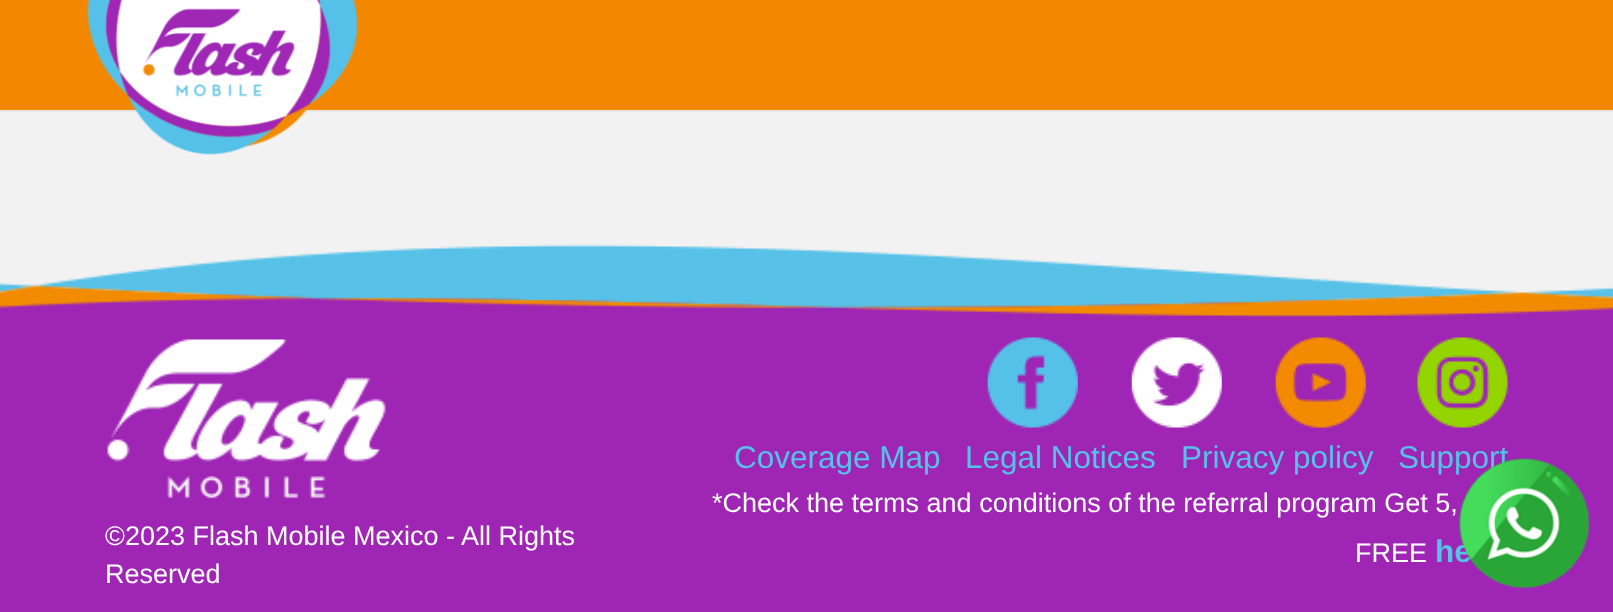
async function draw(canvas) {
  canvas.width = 1613;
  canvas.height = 612;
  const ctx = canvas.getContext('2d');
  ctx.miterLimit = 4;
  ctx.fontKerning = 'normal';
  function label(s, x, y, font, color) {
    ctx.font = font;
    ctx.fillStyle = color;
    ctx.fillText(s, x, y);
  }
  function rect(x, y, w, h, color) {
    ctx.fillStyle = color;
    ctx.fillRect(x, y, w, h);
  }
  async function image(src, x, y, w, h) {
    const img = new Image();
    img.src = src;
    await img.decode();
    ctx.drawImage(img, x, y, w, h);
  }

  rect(0, 0, 1613, 612, '#f2f2f2');
  rect(0, 0, 1613, 110, '#f38800');
  rect(0, 110, 1613, 2, '#e7e7e7');
  await image('assets/img1.png', 87, 0, 271, 155);
  rect(0, 318, 1613, 294, '#9f26b5');
  await image('assets/img2.png', 0, 244, 1613, 74);
  await image('assets/img3.png', 107, 339, 279, 160);
  label('©2023 Flash Mobile Mexico - All Rights', 105, 545, '27px Liberation Sans', '#fff');
  label('Reserved', 105, 583, '27px Liberation Sans', '#fff');
  await image('assets/img4.png', 987, 337, 91, 91);
  await image('assets/img5.png', 1131, 337, 91, 91);
  await image('assets/img6.png', 1275, 337, 91, 91);
  await image('assets/img7.png', 1417, 337, 91, 91);
  label('Coverage Map', 734, 468, '31.5px Liberation Sans', '#57c1e8');
  label('Legal Notices', 965, 468, '31.5px Liberation Sans', '#57c1e8');
  label('Privacy policy', 1181, 468, '31.5px Liberation Sans', '#57c1e8');
  label('Support', 1398, 468, '31.5px Liberation Sans', '#57c1e8');
  label('*Check the terms and conditions of the referral program Get 5,', 712, 512, '27px Liberation Sans', '#fff');
  label('FREE', 1355, 562, '27px Liberation Sans', '#fff');
  label('he', 1435, 562, 'bold 31.5px Liberation Sans', '#57c1e8');
  await image('assets/img8.png', 1458, 458, 132, 131);
}

draw(document.querySelector('canvas'));
